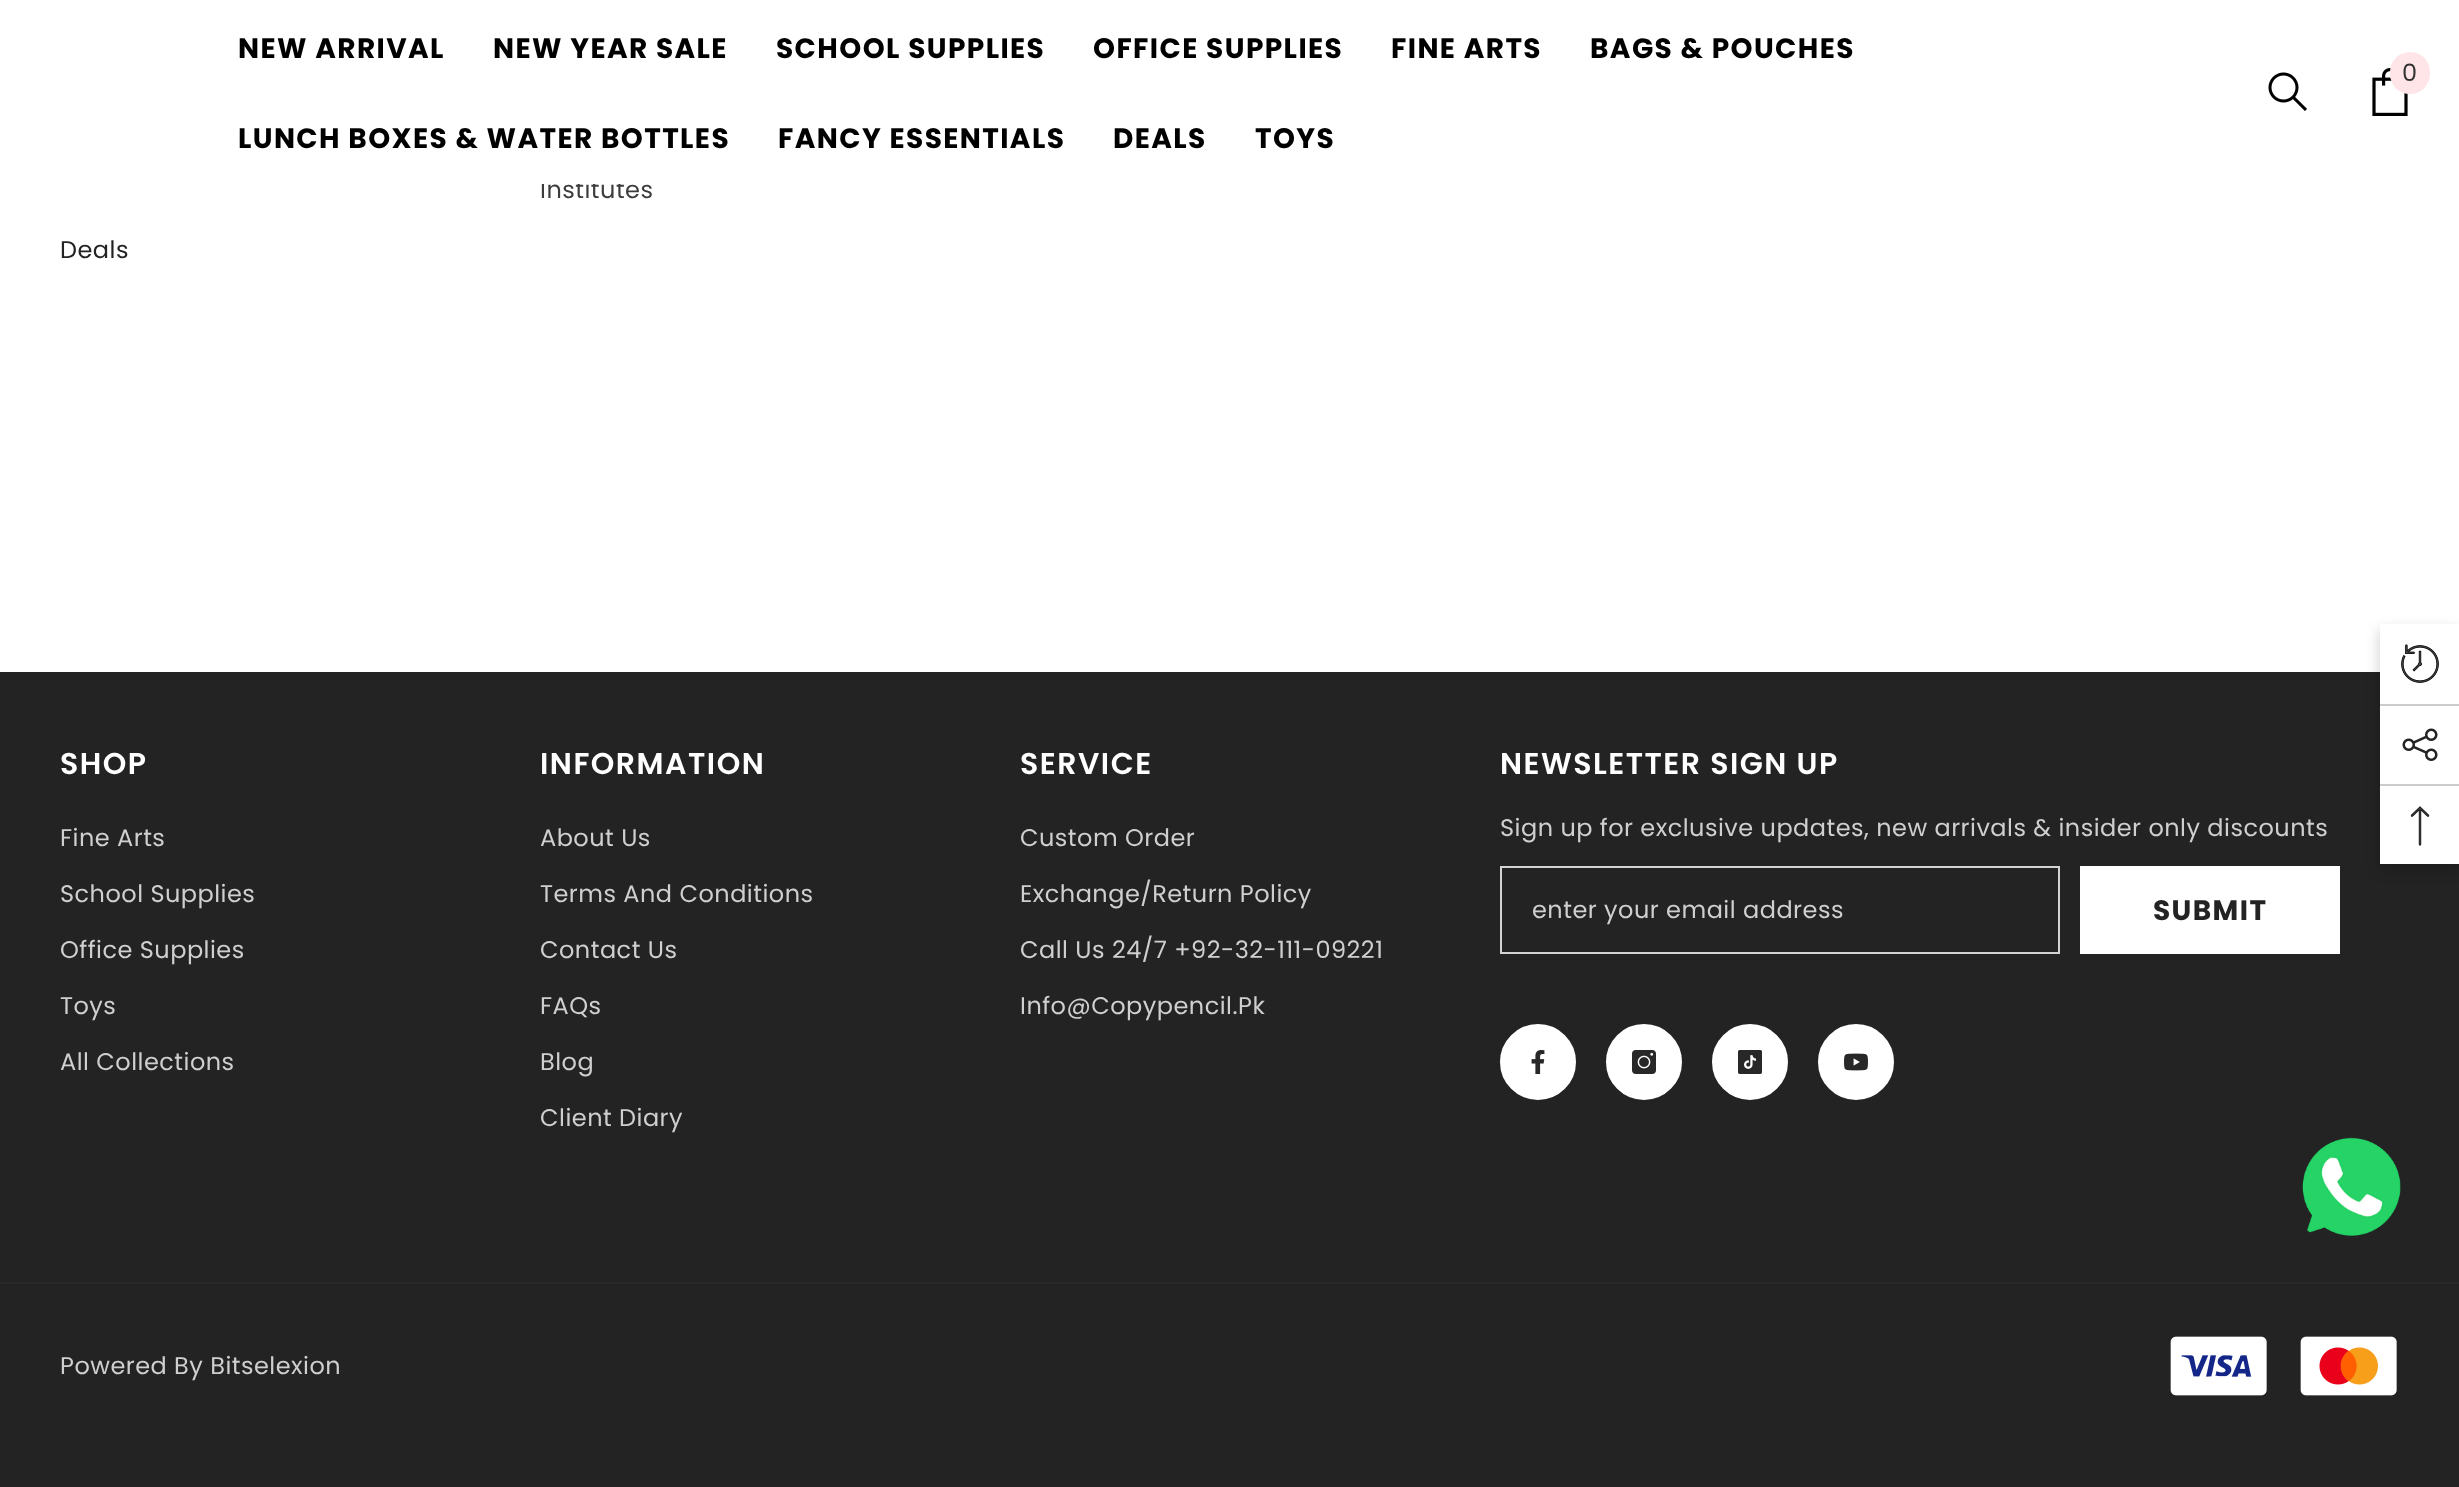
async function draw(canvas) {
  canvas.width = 2459;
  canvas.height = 1487;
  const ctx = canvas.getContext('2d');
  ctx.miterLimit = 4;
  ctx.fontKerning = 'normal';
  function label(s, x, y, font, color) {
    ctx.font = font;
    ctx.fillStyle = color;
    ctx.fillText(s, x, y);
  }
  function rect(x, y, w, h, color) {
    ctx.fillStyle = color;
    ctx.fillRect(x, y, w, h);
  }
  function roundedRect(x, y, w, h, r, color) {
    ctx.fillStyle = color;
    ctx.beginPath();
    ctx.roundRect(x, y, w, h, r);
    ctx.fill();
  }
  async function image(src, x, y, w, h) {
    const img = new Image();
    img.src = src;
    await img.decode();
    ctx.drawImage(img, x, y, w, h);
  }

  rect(0, 0, 2459, 1487, '#fff');
  ctx.letterSpacing = '0.48px';
  label('Institutes', 540, 198, '24px Poppins', '#3c3c3c');
  rect(541, 179, 80, 5, '#fff');
  ctx.letterSpacing = '1.4px';
  label('NEW ARRIVAL', 238, 58, 'bold 28px Poppins', '#000');
  label('NEW YEAR SALE', 493, 58, 'bold 28px Poppins', '#000');
  label('SCHOOL SUPPLIES', 776, 58, 'bold 28px Poppins', '#000');
  label('OFFICE SUPPLIES', 1093, 58, 'bold 28px Poppins', '#000');
  label('FINE ARTS', 1391, 58, 'bold 28px Poppins', '#000');
  label('BAGS & POUCHES', 1590, 58, 'bold 28px Poppins', '#000');
  label('LUNCH BOXES & WATER BOTTLES', 238, 148, 'bold 28px Poppins', '#000');
  label('FANCY ESSENTIALS', 778, 148, 'bold 28px Poppins', '#000');
  label('DEALS', 1113, 148, 'bold 28px Poppins', '#000');
  label('TOYS', 1255, 148, 'bold 28px Poppins', '#000');
  await image('assets/img1.png', 2268, 72, 39, 39);
  await image('assets/img2.png', 2372, 68, 36, 48);
  roundedRect(2390, 52, 40, 42, 20, '#ffe5e8');
  ctx.letterSpacing = '0.48px';
  label('0', 2402, 81, '24px Poppins', '#323232');
  label('Deals', 60, 258, '24px Poppins', '#232323');
  rect(0, 672, 2459, 610, '#232323');
  ctx.letterSpacing = '1.5px';
  label('SHOP', 60, 774, '600 30px Poppins', '#fff');
  ctx.letterSpacing = '0.48px';
  label('Fine Arts', 60, 846, '24px Poppins', '#cfcfcf');
  label('School Supplies', 60, 902, '24px Poppins', '#cfcfcf');
  label('Office Supplies', 60, 958, '24px Poppins', '#cfcfcf');
  label('Toys', 60, 1014, '24px Poppins', '#cfcfcf');
  label('All Collections', 60, 1070, '24px Poppins', '#cfcfcf');
  ctx.letterSpacing = '1.5px';
  label('INFORMATION', 540, 774, '600 30px Poppins', '#fff');
  ctx.letterSpacing = '0.48px';
  label('About Us', 540, 846, '24px Poppins', '#cfcfcf');
  label('Terms And Conditions', 540, 902, '24px Poppins', '#cfcfcf');
  label('Contact Us', 540, 958, '24px Poppins', '#cfcfcf');
  label('FAQs', 540, 1014, '24px Poppins', '#cfcfcf');
  label('Blog', 540, 1070, '24px Poppins', '#cfcfcf');
  label('Client Diary', 540, 1126, '24px Poppins', '#cfcfcf');
  ctx.letterSpacing = '1.5px';
  label('SERVICE', 1020, 774, '600 30px Poppins', '#fff');
  ctx.letterSpacing = '0.48px';
  label('Custom Order', 1020, 846, '24px Poppins', '#cfcfcf');
  label('Exchange/Return Policy', 1020, 902, '24px Poppins', '#cfcfcf');
  label('Call Us 24/7 +92-32-111-09221', 1020, 958, '24px Poppins', '#cfcfcf');
  label('Info@Copypencil.Pk', 1020, 1014, '24px Poppins', '#cfcfcf');
  ctx.letterSpacing = '1.5px';
  label('NEWSLETTER SIGN UP', 1500, 774, '600 30px Poppins', '#fff');
  ctx.letterSpacing = '0.48px';
  label('Sign up for exclusive updates, new arrivals & insider only discounts', 1500, 836, '24px Poppins', '#cfcfcf');
  ctx.strokeStyle = '#d3d3d3';
  ctx.lineWidth = 2;
  ctx.strokeRect(1501, 867, 558, 86);
  label('enter your email address', 1532, 918, '24px Poppins', '#cfcfcf');
  rect(2080, 866, 260, 88, '#fff');
  ctx.letterSpacing = '1.4px';
  label('SUBMIT', 2153, 920, 'bold 28px Poppins', '#232323');
  ctx.fillStyle = '#fff';
  ctx.beginPath();
  ctx.arc(1538, 1062, 37, 0, 2 * Math.PI);
  ctx.fill();
  ctx.strokeStyle = '#fff';
  ctx.stroke();
  await image('assets/img3.png', 1531, 1050, 14, 24);
  ctx.beginPath();
  ctx.arc(1644, 1062, 37, 0, 2 * Math.PI);
  ctx.fill();
  ctx.stroke();
  await image('assets/img4.png', 1632, 1050, 24, 24);
  ctx.beginPath();
  ctx.arc(1750, 1062, 37, 0, 2 * Math.PI);
  ctx.fill();
  ctx.stroke();
  await image('assets/img5.png', 1738, 1050, 24, 24);
  ctx.beginPath();
  ctx.arc(1856, 1062, 37, 0, 2 * Math.PI);
  ctx.fill();
  ctx.stroke();
  await image('assets/img6.png', 1844, 1053, 24, 18);
  rect(0, 1284, 2459, 203, '#232323');
  rect(0, 1282, 2459, 2, '#282828');
  ctx.letterSpacing = '0.48px';
  label('Powered By Bitselexion', 60, 1374, '24px Poppins', '#cfcfcf');
  await image('assets/img7.png', 2170, 1336, 97, 60);
  await image('assets/img8.png', 2300, 1336, 97, 60);
  ctx.fillStyle = '#00000033';
  ctx.filter = 'blur(7px)';
  ctx.beginPath();
  ctx.rect(2380, 630, 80, 240);
  ctx.fill();
  ctx.filter = 'none';
  rect(2380, 624, 79, 240, '#fff');
  await image('assets/img9.png', 2401, 644, 38, 39);
  rect(2380, 704, 79, 2, '#ccc');
  await image('assets/img10.png', 2402, 728, 36, 33);
  rect(2380, 784, 79, 2, '#ccc');
  await image('assets/img11.png', 2410, 806, 20, 40);
  await image('assets/img12.png', 2302, 1137, 99, 99);
}

draw(document.querySelector('canvas'));
